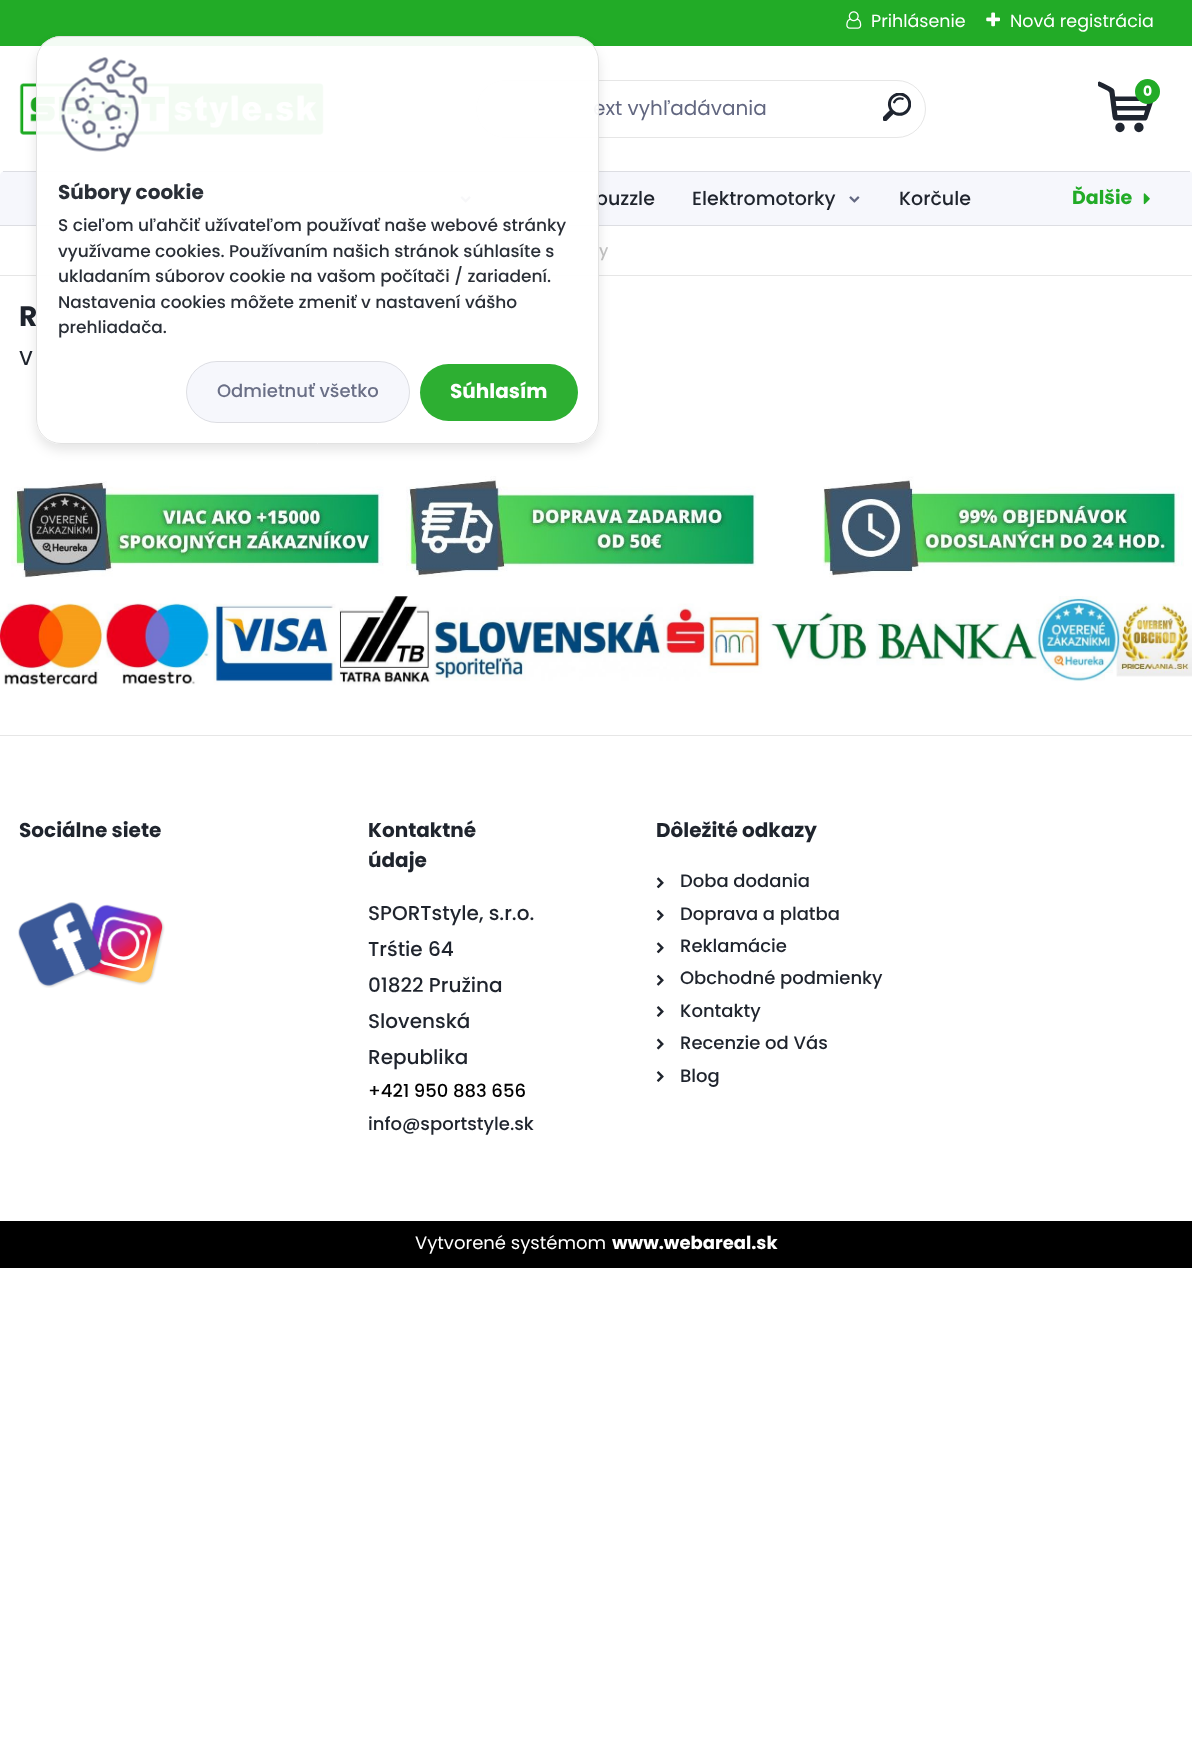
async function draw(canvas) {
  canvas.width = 1192;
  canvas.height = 1748;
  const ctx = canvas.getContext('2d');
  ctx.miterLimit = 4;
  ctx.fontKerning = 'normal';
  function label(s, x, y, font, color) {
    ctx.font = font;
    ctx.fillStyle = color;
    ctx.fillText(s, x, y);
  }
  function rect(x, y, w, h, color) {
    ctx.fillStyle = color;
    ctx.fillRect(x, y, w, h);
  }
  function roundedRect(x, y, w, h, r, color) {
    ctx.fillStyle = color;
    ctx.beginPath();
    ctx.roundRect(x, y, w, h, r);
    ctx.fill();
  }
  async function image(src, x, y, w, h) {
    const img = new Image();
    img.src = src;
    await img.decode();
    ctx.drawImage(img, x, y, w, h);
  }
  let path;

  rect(0, 0, 1192, 1748, '#fff');
  rect(0, 0, 1192, 46, '#22ab27');
  await image('assets/img1.png', 846, 11, 16, 18);
  label('Prihlásenie', 871, 27, '17.5px Poppins', '#fff');
  await image('assets/img2.png', 986, 12, 14, 15);
  label('Nová registrácia', 1010, 27, '17.5px Poppins', '#fff');
  await image('assets/img3.png', 19, 83, 305, 52);
  await image('assets/img4.png', 1098, 81, 55, 52);
  ctx.fillStyle = '#22ab27';
  ctx.beginPath();
  ctx.arc(1147.5, 91.5, 12.5, 0, 2 * Math.PI);
  ctx.fill();
  label('0', 1143, 96, 'bold 14px Poppins', '#fff');
  ctx.beginPath();
  ctx.roundRect(476.5, 80.5, 449, 57, 28.5);
  ctx.strokeStyle = '#e6e6e6';
  ctx.stroke();
  label('ext vyhľadávania', 593, 115, '20px Poppins', '#626780');
  await image('assets/img5.png', 883, 93, 28, 28);
  ctx.fillStyle = '#f6f7fc';
  path = new Path2D('M5 171H1188C1191 171 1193 173 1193 176V226H0V176C0 173 2 171 5 171Z');
  ctx.fill(path);
  rect(3, 171, 1187, 1, '#dddee3');
  rect(0, 225, 1192, 1, '#dddee3');
  await image('assets/img6.png', 460, 196, 11, 7);
  label('puzzle', 595, 205, '500 19px Poppins', '#1f242d');
  label('Elektromotorky', 692, 205, '500 19px Poppins', '#1f242d');
  await image('assets/img7.png', 849, 196, 11, 7);
  label('Korčule', 899, 205, '500 19px Poppins', '#1f242d');
  label('Ďalšie', 1072, 204, 'bold 19px Poppins', '#22ab27');
  await image('assets/img8.png', 1143, 193, 7, 12);
  rect(0, 275, 1192, 1, '#e6e6e6');
  ctx.fillStyle = '#c3c3c3';
  path = new Path2D('M90 238H91L103 250H101.5ZM101.5 250H103L91 262H90Z');
  ctx.fill(path);
  path = new Path2D('M266 238H267.5L279.5 250H278ZM278 250H279.5L267.5 262H266Z');
  ctx.fill(path);
  path = new Path2D('M401.5 238H402.5L414.5 250H413ZM413 250H414.5L402.5 262H401.5Z');
  ctx.fill(path);
  label('y', 599, 256, '500 16px Poppins', '#c3c3c3');
  label('R', 19, 326, 'bold 28px Poppins', '#1f242d');
  label('V', 19, 365, '500 20px Poppins', '#1f242d');
  await image('assets/img9.png', 11, 476, 1173, 102);
  await image('assets/img10.png', 0, 596, 1192, 89);
  rect(0, 735, 1192, 1, '#e6e6e6');
  label('Sociálne siete', 19, 837, 'bold 20px Poppins', '#1f242d');
  await image('assets/img11.png', 18, 902, 147, 86);
  label('Kontaktné', 368, 837, 'bold 20px Poppins', '#1f242d');
  label('údaje', 368, 867, 'bold 20px Poppins', '#1f242d');
  label('SPORTstyle, s.r.o.', 368, 920, '500 20px Poppins', '#1f242d');
  label('Trśtie 64', 368, 956, '500 20px Poppins', '#1f242d');
  label('01822 Pružina', 368, 992, '500 20px Poppins', '#1f242d');
  label('Slovenská', 368, 1028, '500 20px Poppins', '#1f242d');
  label('Republika', 368, 1064, '500 20px Poppins', '#1f242d');
  label('+421 950 883 656', 368, 1097, '500 18px Poppins', '#000');
  label('info@sportstyle.sk', 368, 1130, '500 18px Poppins', '#1f242d');
  label('Dôležité odkazy', 656, 837, 'bold 20px Poppins', '#1f242d');
  await image('assets/img12.png', 656, 877, 8, 12);
  label('Doba dodania', 680, 887, '500 18px Poppins', '#1f242d');
  await image('assets/img13.png', 656, 909, 8, 12);
  label('Doprava a platba', 680, 920, '500 18px Poppins', '#1f242d');
  await image('assets/img12.png', 656, 942, 8, 12);
  label('Reklamácie', 680, 952, '500 18px Poppins', '#1f242d');
  await image('assets/img13.png', 656, 974, 8, 12);
  label('Obchodné podmienky', 680, 984, '500 18px Poppins', '#1f242d');
  await image('assets/img14.png', 656, 1006, 8, 11);
  label('Kontakty', 680, 1017, '500 18px Poppins', '#1f242d');
  await image('assets/img15.png', 656, 1038, 8, 12);
  label('Recenzie od Vás', 680, 1049, '500 18px Poppins', '#1f242d');
  await image('assets/img14.png', 656, 1071, 8, 11);
  label('Blog', 680, 1082, '500 18px Poppins', '#1f242d');
  rect(0, 1221, 1192, 47, '#000');
  label('Vytvorené systémom', 415, 1249, '18px Poppins', '#fff');
  label('www.webareal.sk', 612, 1249, 'bold 18px Poppins', '#fff');
  ctx.save();
  path = new Path2D('M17 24H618V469H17ZM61 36H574C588 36 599 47 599 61V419C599 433 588 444 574 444H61C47 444 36 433 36 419V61C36 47 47 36 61 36Z');
  ctx.clip(path, 'evenodd');
  ctx.fillStyle = '#0000001a';
  ctx.filter = 'blur(6px)';
  ctx.beginPath();
  ctx.roundRect(36, 43, 563, 407, 25);
  ctx.fill();
  ctx.filter = 'none';
  ctx.restore();
  roundedRect(36, 36, 563, 408, 25, '#fffffff2');
  ctx.beginPath();
  ctx.roundRect(36.5, 36.5, 562, 407, 24.5);
  ctx.strokeStyle = '#e0e0e0f2';
  ctx.stroke();
  await image('assets/img16.png', 61, 57, 87, 95);
  label('Súbory cookie', 58, 199, 'bold 20px Poppins', '#2a2f37');
  label('S cieľom uľahčiť užívateľom používať naše webové stránky', 58, 231, '500 17px Poppins', '#2a2f37');
  label('využívame cookies. Používaním našich stránok súhlasíte s', 58, 257, '500 17px Poppins', '#2a2f37');
  label('ukladaním súborov cookie na vašom počítači / zariadení.', 58, 282, '500 17px Poppins', '#2a2f37');
  label('Nastavenia cookies môžete zmeniť v nastavení vášho', 58, 308, '500 17px Poppins', '#2a2f37');
  label('prehliadača.', 58, 333, '500 17px Poppins', '#2a2f37');
  roundedRect(186, 361, 224, 62, 31, '#f6f7fcf2');
  ctx.beginPath();
  ctx.roundRect(186.5, 361.5, 223, 61, 30.5);
  ctx.strokeStyle = '#0000001a';
  ctx.stroke();
  label('Odmietnuť všetko', 217, 397, '500 18px Poppins', '#6a6f86');
  roundedRect(420, 364, 158, 57, 28.5, '#2daf32');
  label('Súhlasím', 450, 398, 'bold 20px Poppins', '#fff');
}

draw(document.querySelector('canvas'));
